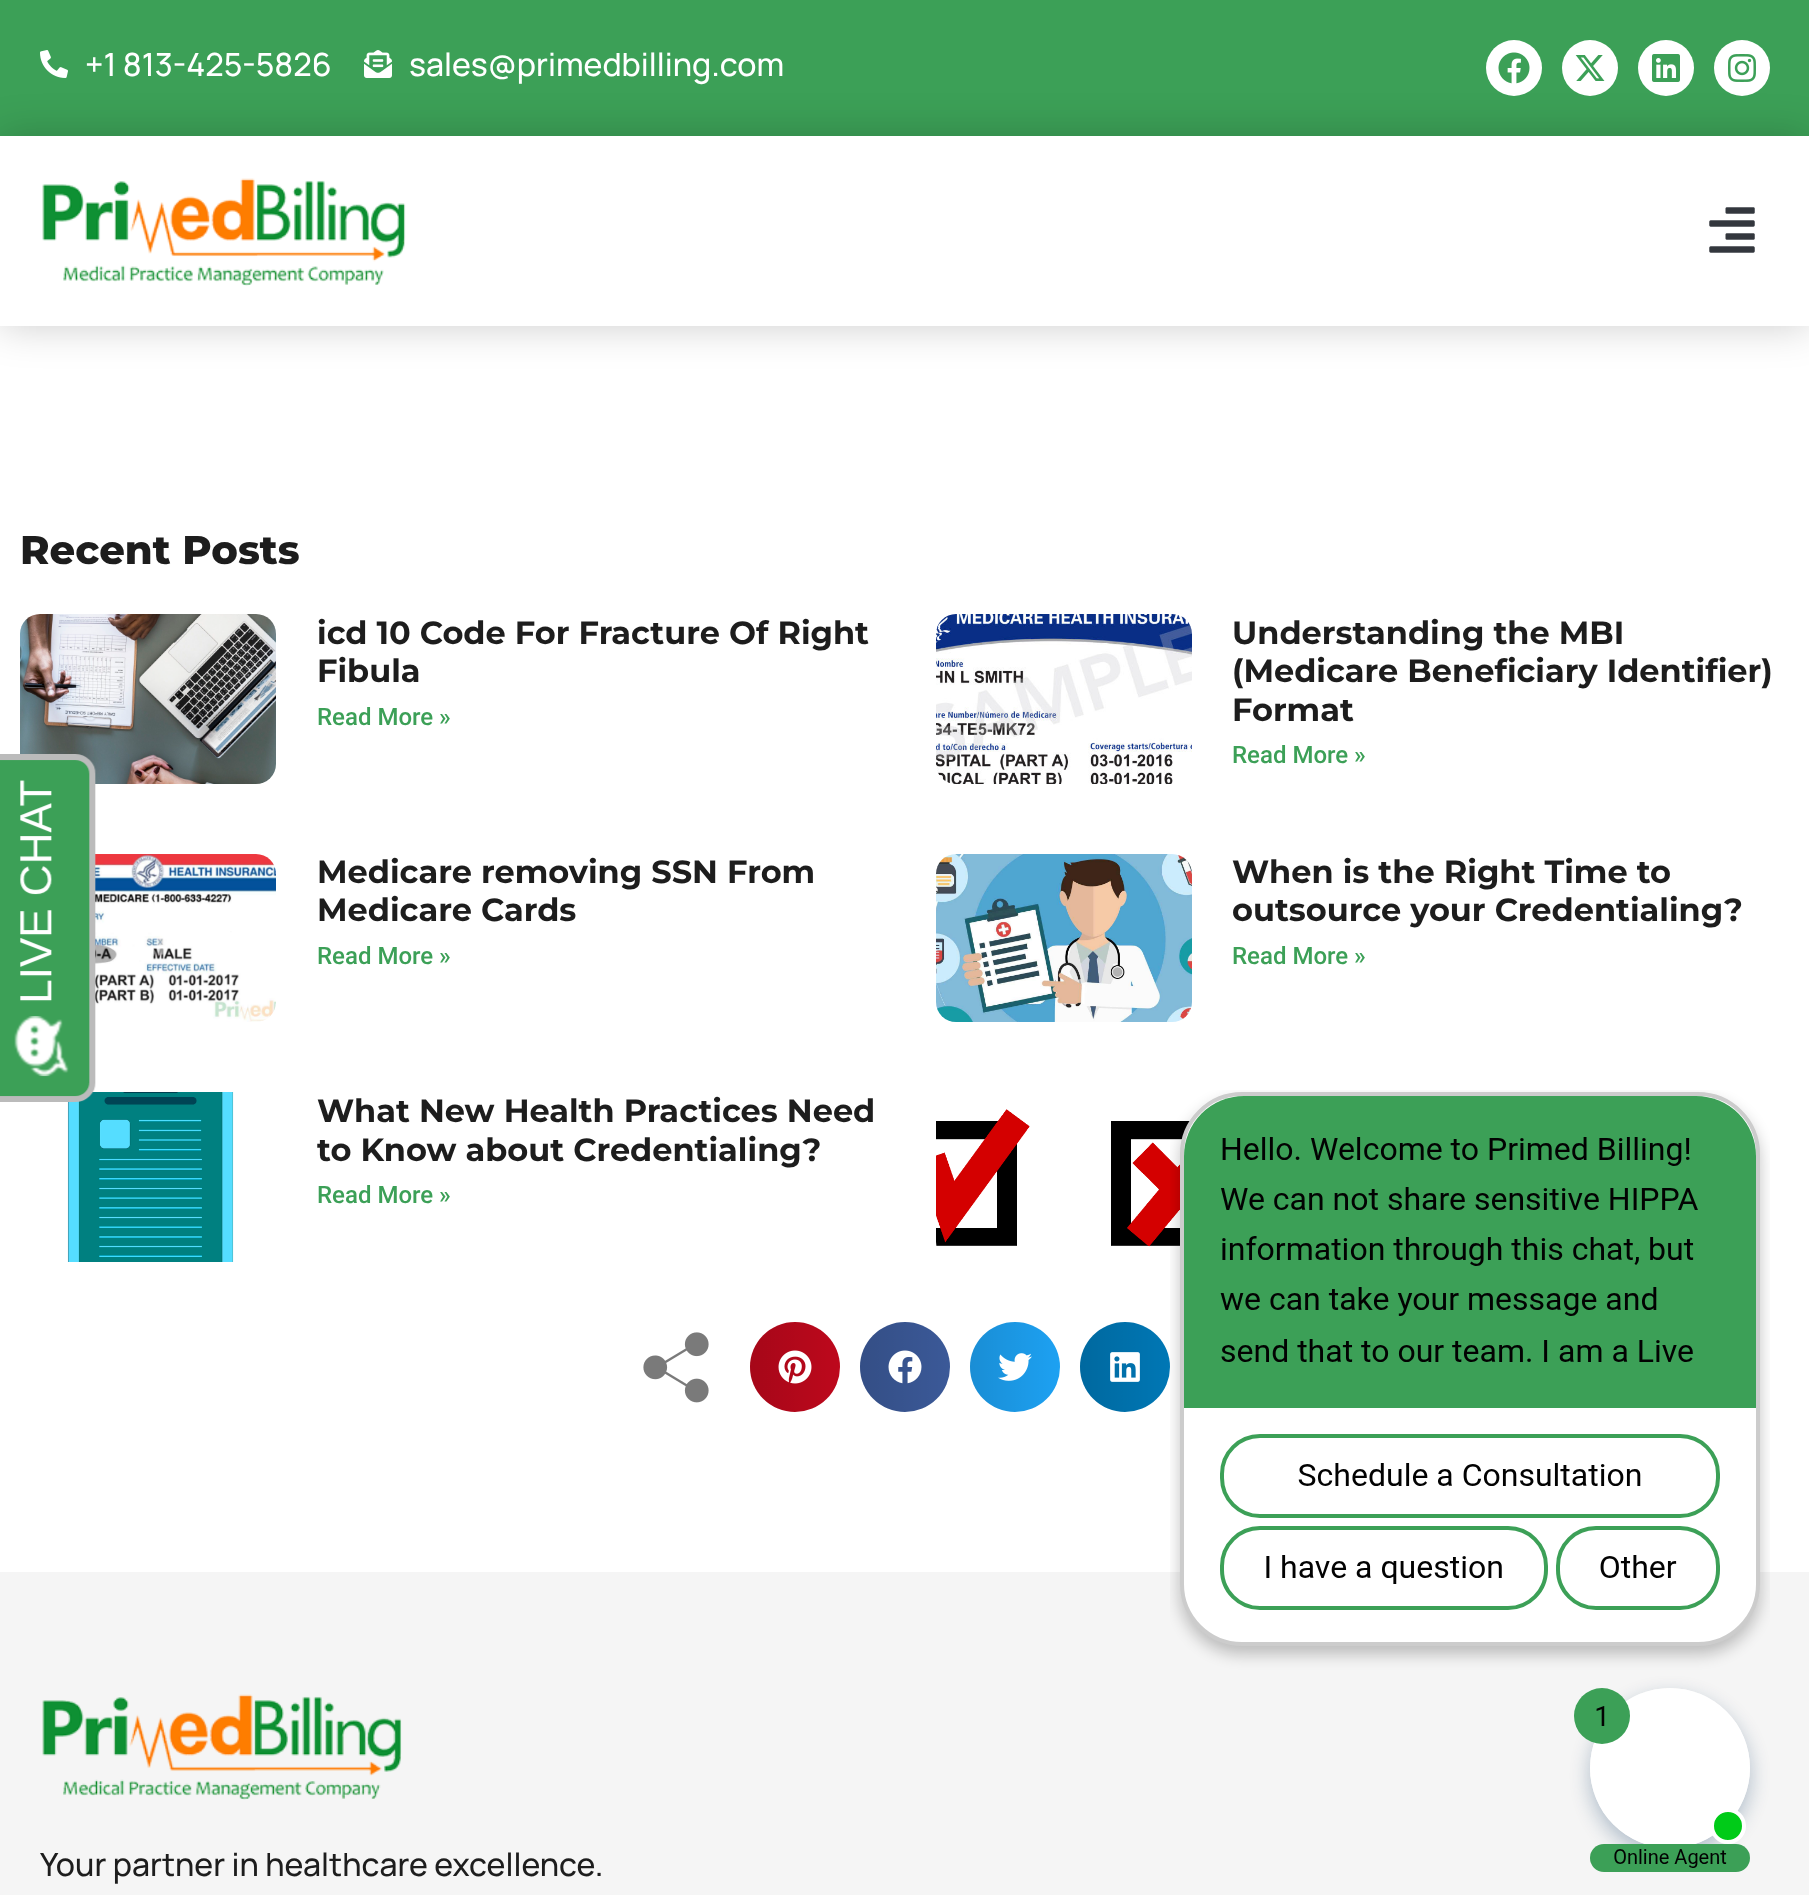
async function draw(canvas) {
  canvas.width = 1809;
  canvas.height = 1895;
  const ctx = canvas.getContext('2d');
  ctx.miterLimit = 4;
  ctx.fontKerning = 'normal';
  function label(s, x, y, font, color) {
    ctx.font = font;
    ctx.fillStyle = color;
    ctx.fillText(s, x, y);
  }
  function rect(x, y, w, h, color) {
    ctx.fillStyle = color;
    ctx.fillRect(x, y, w, h);
  }
  async function image(src, x, y, w, h) {
    const img = new Image();
    img.src = src;
    await img.decode();
    ctx.drawImage(img, x, y, w, h);
  }
  let gradient, path;

  rect(0, 0, 1809, 1895, '#fff');
  rect(0, 0, 1809, 136, '#3ca057');
  await image('assets/img1.png', 40, 50, 28, 28);
  label('+1 813-425-5826', 85, 76, '500 32px Manrope', '#fff');
  await image('assets/img2.png', 364, 50, 28, 28);
  label('sales@primedbilling.com', 409, 76, '500 32px Manrope', '#fff');
  ctx.beginPath();
  ctx.arc(1514, 68, 28, 0, 2 * Math.PI);
  ctx.fill();
  await image('assets/img3.png', 1498, 52, 32, 32);
  ctx.beginPath();
  ctx.arc(1590, 68, 28, 0, 2 * Math.PI);
  ctx.fill();
  await image('assets/img4.png', 1575, 55, 30, 26);
  ctx.beginPath();
  ctx.arc(1666, 68, 28, 0, 2 * Math.PI);
  ctx.fill();
  await image('assets/img5.png', 1652, 54, 28, 28);
  ctx.beginPath();
  ctx.arc(1742, 68, 28, 0, 2 * Math.PI);
  ctx.fill();
  await image('assets/img6.png', 1728, 54, 28, 28);
  ctx.save();
  path = new Path2D('M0 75H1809V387H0ZM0 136H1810V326H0Z');
  ctx.clip(path, 'evenodd');
  ctx.fillStyle = '#00000033';
  ctx.filter = 'blur(20px)';
  ctx.beginPath();
  ctx.rect(0, 136, 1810, 190);
  ctx.fill();
  ctx.filter = 'none';
  ctx.restore();
  await image('assets/img7.png', 42, 178, 364, 108);
  await image('assets/img8.png', 1709, 207, 46, 46);
  label('Recent Posts', 20, 564, '800 40px Montserrat', '#1d1d1d');
  await image('assets/img9.png', 20, 614, 256, 170);
  label('icd 10 Code For Fracture Of Right', 317, 644, 'bold 32px Montserrat', '#1d1d1d');
  label('Fibula', 317, 682, 'bold 32px Montserrat', '#1d1d1d');
  label('Read More »', 317, 725, '500 24px Roboto', '#3ca057');
  await image('assets/img10.png', 936, 614, 256, 170);
  label('Understanding the MBI', 1232, 644, 'bold 32px Montserrat', '#1d1d1d');
  label('(Medicare Beneficiary Identifier)', 1232, 682, 'bold 32px Montserrat', '#1d1d1d');
  label('Format', 1232, 721, 'bold 32px Montserrat', '#1d1d1d');
  label('Read More »', 1232, 763, '500 24px Roboto', '#3ca057');
  await image('assets/img11.png', 95, 854, 181, 168);
  label('Medicare removing SSN From', 317, 883, 'bold 32px Montserrat', '#1d1d1d');
  label('Medicare Cards', 317, 921, 'bold 32px Montserrat', '#1d1d1d');
  label('Read More »', 317, 964, '500 24px Roboto', '#3ca057');
  await image('assets/img12.png', 936, 854, 256, 168);
  label('When is the Right Time to', 1232, 883, 'bold 32px Montserrat', '#1d1d1d');
  label('outsource your Credentialing?', 1232, 921, 'bold 32px Montserrat', '#1d1d1d');
  label('Read More »', 1232, 964, '500 24px Roboto', '#3ca057');
  await image('assets/img13.png', 67, 1092, 167, 170);
  label('What New Health Practices Need', 317, 1122, 'bold 32px Montserrat', '#1d1d1d');
  label('to Know about Credentialing?', 317, 1161, 'bold 32px Montserrat', '#1d1d1d');
  label('Read More »', 317, 1203, '500 24px Roboto', '#3ca057');
  await image('assets/img14.png', 936, 1109, 254, 138);
  await image('assets/img15.png', 643, 1332, 66, 71);
  ctx.fillStyle = '#bd081c';
  ctx.beginPath();
  ctx.arc(795, 1367, 45, 0, 2 * Math.PI);
  ctx.fill();
  gradient = ctx.createLinearGradient(750, 1367, 840, 1367);
  gradient.addColorStop(0, '#0000001f');
  gradient.addColorStop(1, '#00000000');
  ctx.fillStyle = gradient;
  ctx.beginPath();
  ctx.arc(795, 1367, 45, 0, 2 * Math.PI);
  ctx.fill();
  await image('assets/img16.png', 778, 1350, 34, 34);
  ctx.fillStyle = '#3b5998';
  ctx.beginPath();
  ctx.arc(905, 1367, 45, 0, 2 * Math.PI);
  ctx.fill();
  gradient = ctx.createLinearGradient(860, 1367, 950, 1367);
  gradient.addColorStop(0, '#0000001f');
  gradient.addColorStop(1, '#00000000');
  ctx.fillStyle = gradient;
  ctx.beginPath();
  ctx.arc(905, 1367, 45, 0, 2 * Math.PI);
  ctx.fill();
  await image('assets/img17.png', 888, 1350, 34, 34);
  ctx.fillStyle = '#1da1f2';
  ctx.beginPath();
  ctx.arc(1015, 1367, 45, 0, 2 * Math.PI);
  ctx.fill();
  gradient = ctx.createLinearGradient(970, 1367, 1060, 1367);
  gradient.addColorStop(0, '#0000001f');
  gradient.addColorStop(1, '#00000000');
  ctx.fillStyle = gradient;
  ctx.beginPath();
  ctx.arc(1015, 1367, 45, 0, 2 * Math.PI);
  ctx.fill();
  await image('assets/img18.png', 998, 1353, 34, 28);
  ctx.fillStyle = '#0077b5';
  ctx.beginPath();
  ctx.arc(1125, 1367, 45, 0, 2 * Math.PI);
  ctx.fill();
  gradient = ctx.createLinearGradient(1080, 1367, 1170, 1367);
  gradient.addColorStop(0, '#0000001f');
  gradient.addColorStop(1, '#00000000');
  ctx.fillStyle = gradient;
  ctx.beginPath();
  ctx.arc(1125, 1367, 45, 0, 2 * Math.PI);
  ctx.fill();
  await image('assets/img19.png', 1110, 1352, 30, 30);
  await image('assets/img20.png', 0, 754, 96, 348);
  rect(0, 1572, 1809, 323, '#f5f5f5');
  await image('assets/img21.png', 42, 1694, 360, 106);
  label('Your partner in healthcare excellence.', 40, 1876, '500 32px Manrope', '#1d1d1d');
  await image('assets/img22.png', 1170, 1090, 600, 782);
}

draw(document.querySelector('canvas'));
